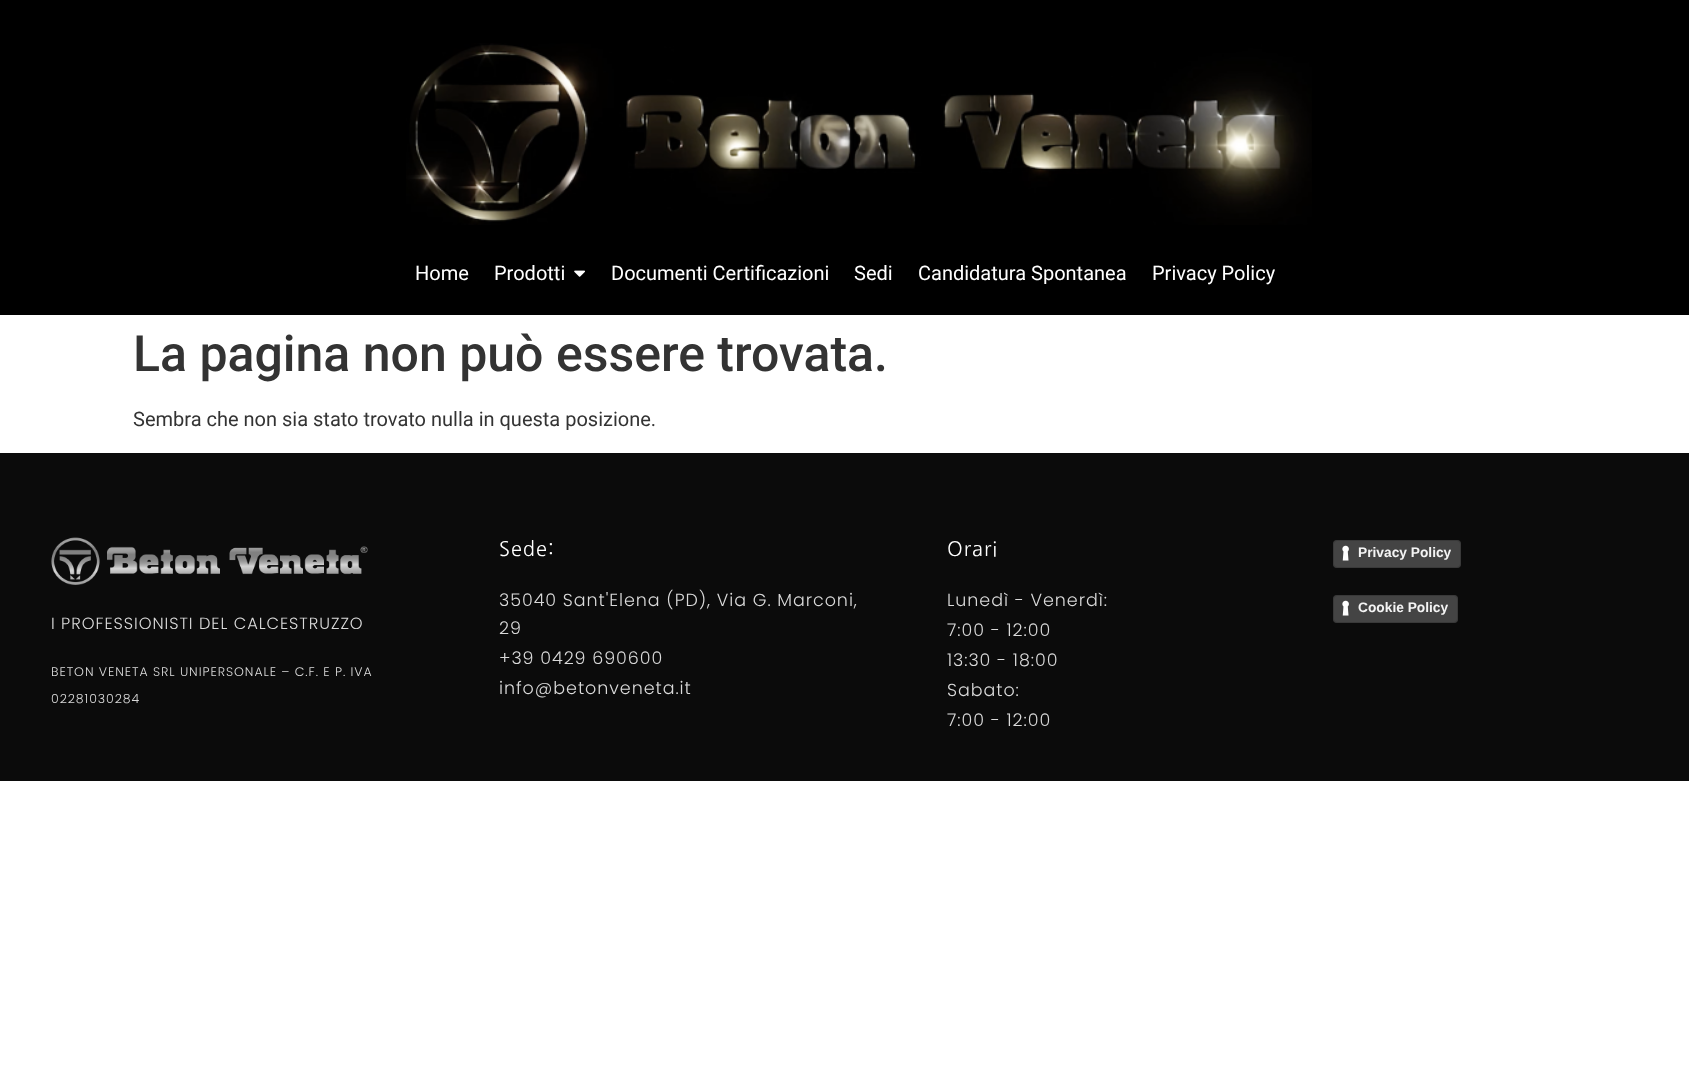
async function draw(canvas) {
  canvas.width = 1689;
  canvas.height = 1087;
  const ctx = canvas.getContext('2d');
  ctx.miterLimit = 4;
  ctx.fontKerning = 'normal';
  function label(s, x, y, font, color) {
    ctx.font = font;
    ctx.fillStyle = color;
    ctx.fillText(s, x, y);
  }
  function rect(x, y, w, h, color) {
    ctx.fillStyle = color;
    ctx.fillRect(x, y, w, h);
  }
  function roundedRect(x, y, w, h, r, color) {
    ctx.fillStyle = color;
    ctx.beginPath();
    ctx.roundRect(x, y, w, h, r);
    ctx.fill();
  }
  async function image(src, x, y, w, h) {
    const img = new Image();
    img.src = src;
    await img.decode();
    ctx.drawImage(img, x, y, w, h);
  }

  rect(0, 0, 1689, 1087, '#fff');
  rect(0, 0, 1689, 315, '#000');
  await image('assets/img1.png', 406, 43, 906, 182);
  label('Home', 415, 280, '20px Roboto', '#fff');
  label('Prodotti', 494, 280, '20px Roboto', '#fff');
  await image('assets/img2.png', 574, 270, 11, 7);
  label('Documenti Certificazioni', 611, 280, '20px Roboto', '#fff');
  label('Sedi', 854, 280, '20px Roboto', '#fff');
  label('Candidatura Spontanea', 918, 280, '20px Roboto', '#fff');
  label('Privacy Policy', 1152, 280, '20px Roboto', '#fff');
  label('La pagina non può essere trovata.', 133, 371, '500 50px Roboto', '#333');
  label('Sembra che non sia stato trovato nulla in questa posizione.', 133, 426, '20px Roboto', '#333');
  rect(0, 453, 1689, 328, '#0b0b0b');
  ctx.letterSpacing = '1px';
  label('Sede:', 499, 556, '20px NanumGothic', '#fff');
  ctx.letterSpacing = '0.95px';
  label('35040 Sant\'Elena (PD), Via G. Marconi,', 499, 606, '300 17.5px Poppins', '#dadada');
  label('29', 499, 634, '300 17.5px Poppins', '#dadada');
  label('+39 0429 690600', 499, 664, '300 17.5px Poppins', '#dadada');
  label('info@betonveneta.it', 499, 694, '300 17.5px Poppins', '#dadada');
  ctx.letterSpacing = '1px';
  label('Orari', 947, 556, '20px NanumGothic', '#fff');
  ctx.letterSpacing = '0.95px';
  label('Lunedì - Venerdì:', 947, 606, '300 17.5px Poppins', '#dadada');
  label('7:00 - 12:00', 947, 636, '300 17.5px Poppins', '#dadada');
  label('13:30 - 18:00', 947, 666, '300 17.5px Poppins', '#dadada');
  label('Sabato:', 947, 696, '300 17.5px Poppins', '#dadada');
  label('7:00 - 12:00', 947, 726, '300 17.5px Poppins', '#dadada');
  roundedRect(1333, 540, 128, 28, 4, '#444');
  await image('assets/img3.png', 1342, 545, 7, 16);
  ctx.beginPath();
  ctx.roundRect(1333.5, 540.5, 127, 27, 3.5);
  ctx.strokeStyle = '#00000026';
  ctx.stroke();
  ctx.letterSpacing = '0px';
  label('Privacy Policy', 1358, 557, 'bold 13.75px Liberation Sans', '#f4f4f4');
  roundedRect(1333, 595, 125, 28, 4, '#444');
  await image('assets/img3.png', 1342, 600, 7, 16);
  ctx.beginPath();
  ctx.roundRect(1333.5, 595.5, 124, 27, 3.5);
  ctx.stroke();
  label('Cookie Policy', 1358, 612, 'bold 13.75px Liberation Sans', '#f4f4f4');
  await image('assets/img4.png', 51, 537, 317, 48);
  ctx.letterSpacing = '0.95px';
  label('I PROFESSIONISTI DEL CALCESTRUZZO', 51, 629, '300 16.25px Poppins', '#dadada');
  label('BETON VENETA SRL UNIPERSONALE – C.F. E P. IVA', 51, 676, '300 12.5px Poppins', '#dadada');
  label('02281030284', 51, 703, '300 12.5px Poppins', '#dadada');
}

draw(document.querySelector('canvas'));
